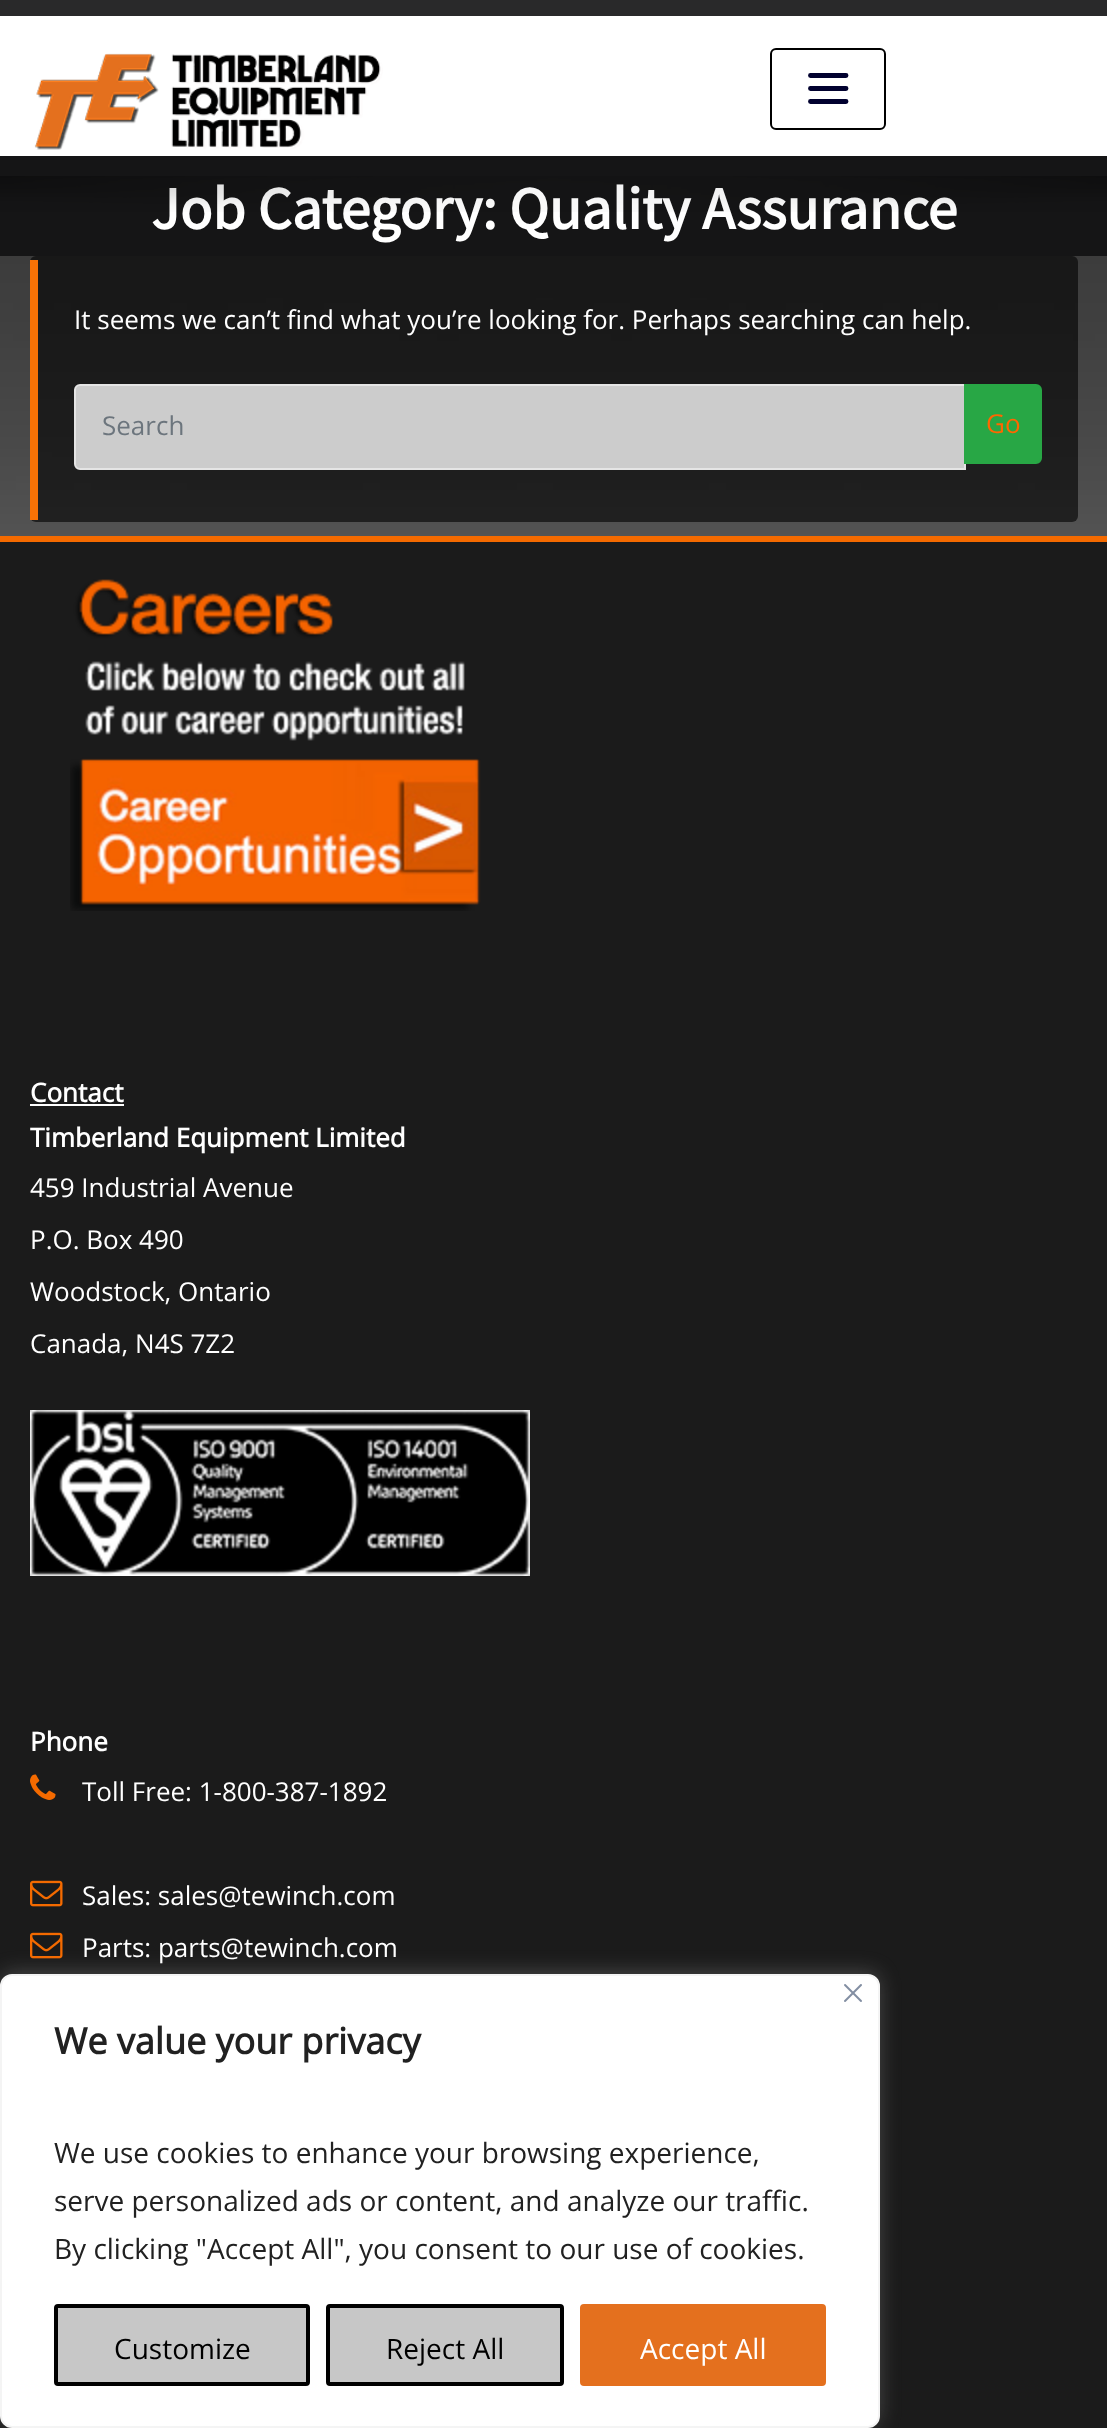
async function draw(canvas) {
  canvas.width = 1107;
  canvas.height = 2428;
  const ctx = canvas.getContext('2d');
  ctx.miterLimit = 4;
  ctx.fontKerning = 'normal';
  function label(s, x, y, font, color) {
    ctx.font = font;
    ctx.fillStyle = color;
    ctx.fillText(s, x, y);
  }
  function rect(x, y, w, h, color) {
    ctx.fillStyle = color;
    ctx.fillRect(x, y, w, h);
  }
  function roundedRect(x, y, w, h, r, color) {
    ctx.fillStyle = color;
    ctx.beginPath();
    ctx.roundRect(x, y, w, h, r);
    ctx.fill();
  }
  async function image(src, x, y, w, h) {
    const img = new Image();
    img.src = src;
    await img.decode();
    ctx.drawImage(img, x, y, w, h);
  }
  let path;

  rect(0, 0, 1107, 2428, '#fff');
  await image('assets/img1.png', 0, 256, 1107, 280);
  rect(0, 0, 1107, 16, '#29292a');
  await image('assets/img2.png', 34, 53, 349, 97);
  ctx.beginPath();
  ctx.roundRect(771, 49, 114, 80, 5);
  ctx.strokeStyle = '#000';
  ctx.lineWidth = 2;
  ctx.stroke();
  path = new Path2D('M810.5 75.5H846M810.5 88.5H846M810.5 101.5H846');
  ctx.strokeStyle = '#01012f';
  ctx.lineWidth = 4.9;
  ctx.lineCap = 'round';
  ctx.stroke(path);
  rect(0, 156, 1107, 100, '#151516');
  label('Job Category: Quality Assurance', 151, 229, 'bold 60px Source Sans Pro', '#fff');
  await image('assets/img3.png', 0, 176, 1107, 36);
  roundedRect(30, 256, 1048, 266, 6, '#00000099');
  rect(30, 260, 8, 260, '#f77206');
  label('It seems we can’t find what you’re looking for. Perhaps searching can help.', 74, 329, '26px Open Sans', '#fff');
  ctx.fillStyle = '#ccc';
  ctx.beginPath();
  ctx.roundRect(75, 385, 890, 84, [5, 0, 0, 5]);
  ctx.fill();
  ctx.strokeStyle = '#e5e5e5';
  ctx.lineWidth = 2;
  ctx.stroke();
  label('Search', 102, 435, '26px Open Sans', '#6c757d');
  ctx.fillStyle = '#28a745';
  ctx.beginPath();
  ctx.roundRect(965, 385, 76, 78, [0, 5, 5, 0]);
  ctx.fill();
  ctx.strokeStyle = '#28a745';
  ctx.stroke();
  label('Go', 986, 433, '26px Open Sans', '#f60');
  rect(0, 542, 1107, 1886, '#1b1b1b');
  rect(0, 536, 1107, 6, '#f46a00');
  await image('assets/img4.png', 70, 579, 411, 332);
  label('Contact', 30, 1102, 'bold 26px Open Sans', '#fff');
  rect(30, 1104, 94, 2, '#fff');
  label('Timberland Equipment Limited', 30, 1147, 'bold 26px Open Sans', '#fff');
  label('459 Industrial Avenue', 30, 1197, '26px Open Sans', '#fff');
  label('P.O. Box 490', 30, 1249, '26px Open Sans', '#fff');
  label('Woodstock, Ontario', 30, 1301, '26px Open Sans', '#fff');
  label('Canada, N4S 7Z2', 30, 1353, '26px Open Sans', '#fff');
  await image('assets/img5.png', 30, 1410, 500, 166);
  label('Phone', 30, 1751, 'bold 26px Open Sans', '#fff');
  await image('assets/img6.png', 30, 1774, 26, 26);
  label('Toll Free: 1-800-387-1892', 82, 1801, '26px Open Sans', '#fff');
  await image('assets/img7.png', 30, 1880, 33, 27);
  label('Sales: sales@tewinch.com', 82, 1905, '26px Open Sans', '#fff');
  await image('assets/img7.png', 30, 1932, 33, 27);
  label('Parts: parts@tewinch.com', 82, 1957, '26px Open Sans', '#fff');
  ctx.fillStyle = '#acabab4d';
  ctx.filter = 'blur(10px)';
  ctx.beginPath();
  ctx.roundRect(0, 1972, 880, 454, 12);
  ctx.fill();
  ctx.filter = 'none';
  ctx.fillStyle = '#fff';
  ctx.beginPath();
  ctx.roundRect(1, 1975, 878, 452, 11);
  ctx.fill();
  ctx.strokeStyle = '#f4f4f4';
  ctx.stroke();
  await image('assets/img8.png', 844, 1984, 18, 18);
  label('We value your privacy', 54, 2054, 'bold 36px Open Sans', '#212121');
  label('We use cookies to enhance your browsing experience,', 54, 2163, '28px Open Sans', '#212121');
  label('serve personalized ads or content, and analyze our traffic.', 54, 2211, '28px Open Sans', '#212121');
  label('By clicking "Accept All", you consent to our use of cookies.', 54, 2259, '28px Open Sans', '#212121');
  ctx.fillStyle = '#c7c7c7';
  ctx.beginPath();
  ctx.roundRect(56, 2306, 252, 78, 2);
  ctx.fill();
  ctx.strokeStyle = '#000';
  ctx.lineWidth = 4;
  ctx.stroke();
  label('Customize', 114, 2359, '28px Open Sans', '#000');
  ctx.fillStyle = '#c7c7c7';
  ctx.beginPath();
  ctx.roundRect(328, 2306, 234, 78, 2);
  ctx.fill();
  ctx.stroke();
  label('Reject All', 386, 2359, '28px Open Sans', '#000');
  ctx.fillStyle = '#e4701e';
  ctx.beginPath();
  ctx.roundRect(582, 2306, 242, 78, 2);
  ctx.fill();
  ctx.strokeStyle = '#e4701e';
  ctx.stroke();
  label('Accept All', 640, 2359, '28px Open Sans', '#fff');
}

draw(document.querySelector('canvas'));
